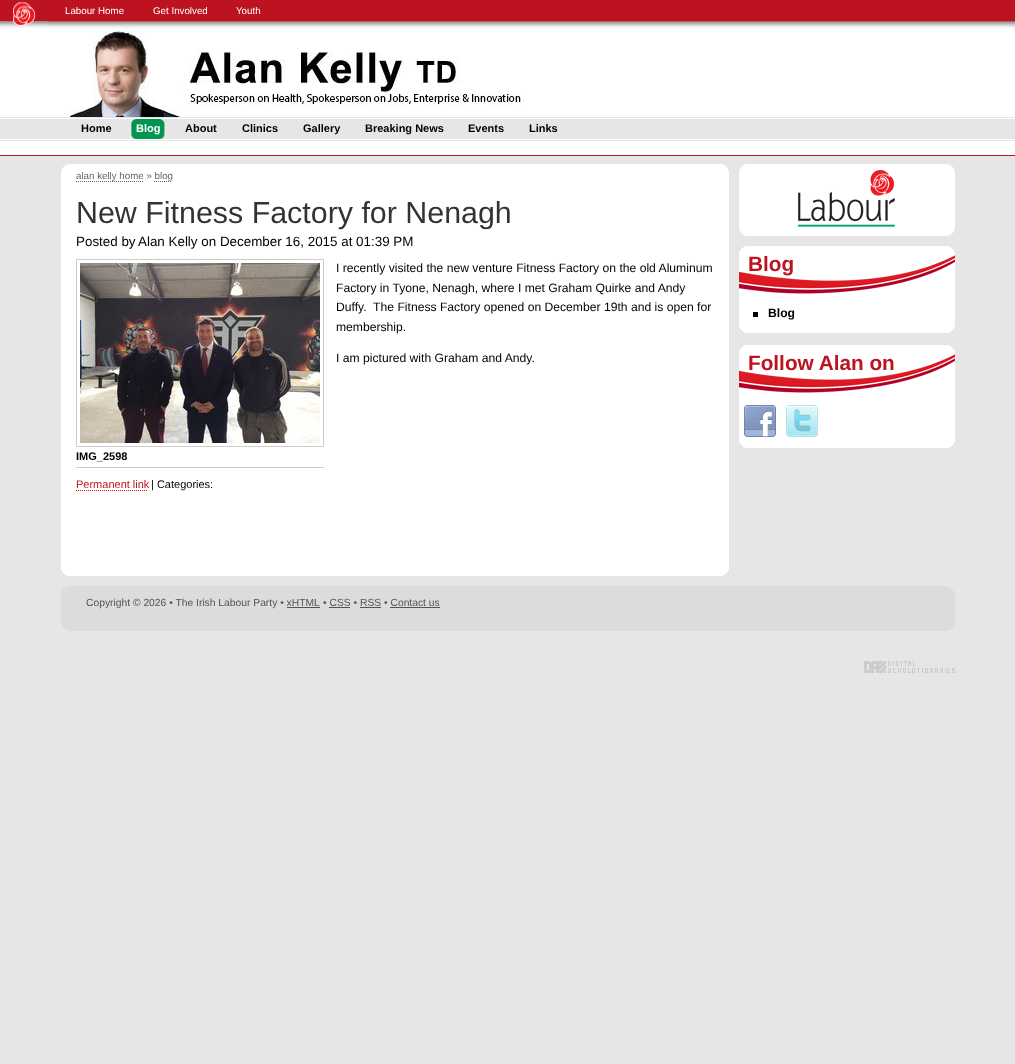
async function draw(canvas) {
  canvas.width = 1015;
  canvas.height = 1064;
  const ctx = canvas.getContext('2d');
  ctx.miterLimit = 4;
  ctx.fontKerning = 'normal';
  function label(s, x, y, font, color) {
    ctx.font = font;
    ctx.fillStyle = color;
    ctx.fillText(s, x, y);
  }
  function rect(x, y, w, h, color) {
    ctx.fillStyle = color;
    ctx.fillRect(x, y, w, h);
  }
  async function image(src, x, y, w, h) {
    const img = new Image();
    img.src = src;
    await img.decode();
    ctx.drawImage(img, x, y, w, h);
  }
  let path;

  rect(0, 0, 1015, 1064, '#e6e6e6');
  rect(0, 0, 1015, 21, '#bd1220');
  await image('assets/img1.png', 0, 21, 1015, 7);
  await image('assets/img2.png', 0, 2, 48, 25);
  label('Labour Home', 65, 14, '9.75px Liberation Sans', '#fff');
  label('Get Involved', 153, 14, '9.75px Liberation Sans', '#fff');
  label('Youth', 236, 14, '9.75px Liberation Sans', '#fff');
  rect(61, 164, 668, 412, '#fff');
  await image('assets/img3.png', 61, 164, 668, 6);
  await image('assets/img4.png', 61, 570, 668, 6);
  label('alan kelly home » blog', 76, 179, '9.75px Liberation Sans', '#666');
  path = new Path2D('M76 181.5H143');
  ctx.strokeStyle = '#666';
  ctx.setLineDash([1, 1]);
  ctx.stroke(path);
  path = new Path2D('M154 181.5H172');
  ctx.stroke(path);
  label('New Fitness Factory for Nenagh', 76, 223, '30.4px Liberation Sans', '#333');
  label('Posted by', 76, 246, '13.4px Liberation Sans', '#000');
  label('Alan Kelly on December 16, 2015 at 01:39 PM', 138, 246, '13.4px Liberation Sans', '#000');
  label('I recently visited the new venture Fitness Factory on the old Aluminum', 336, 272, '12.15px Liberation Sans', '#000');
  label('Factory in Tyone, Nenagh, where I met Graham Quirke and Andy', 336, 292, '12.15px Liberation Sans', '#000');
  label('Duffy.  The Fitness Factory opened on December 19th and is open for', 336, 311, '12.15px Liberation Sans', '#000');
  label('membership.', 336, 331, '12.15px Liberation Sans', '#000');
  label('I am pictured with Graham and Andy.', 336, 362, '12.15px Liberation Sans', '#000');
  ctx.strokeStyle = '#ccc';
  ctx.setLineDash([]);
  ctx.strokeRect(76.5, 259.5, 247, 187);
  await image('assets/img5.png', 80, 263, 240, 180);
  rect(76, 467, 248, 1, '#ccc');
  label('IMG_2598', 76, 460, 'bold 11px Liberation Sans', '#000');
  label('Permanent link', 76, 488, '11px Liberation Sans', '#bd1220');
  path = new Path2D('M76 490.5H148');
  ctx.strokeStyle = '#bd1220';
  ctx.setLineDash([1, 1]);
  ctx.stroke(path);
  label('| Categories:', 151, 488, '11px Liberation Sans', '#000');
  rect(739, 164, 216, 72, '#fff');
  await image('assets/img6.png', 739, 164, 216, 6);
  await image('assets/img7.png', 739, 230, 216, 6);
  await image('assets/img8.png', 798, 170, 97, 57);
  rect(739, 246, 216, 87, '#fff');
  await image('assets/img6.png', 739, 246, 216, 6);
  await image('assets/img7.png', 739, 327, 216, 6);
  await image('assets/img9.png', 739, 255, 216, 39);
  label('Blog', 748, 271, 'bold 20.75px Liberation Sans', '#bd1220');
  rect(753, 312, 5, 5, '#000');
  label('Blog', 768, 317, 'bold 12.15px Liberation Sans', '#000');
  rect(739, 345, 216, 103, '#fff');
  await image('assets/img6.png', 739, 345, 216, 6);
  await image('assets/img7.png', 739, 442, 216, 6);
  await image('assets/img9.png', 739, 354, 216, 39);
  label('Follow Alan on', 748, 370, 'bold 20.75px Liberation Sans', '#bd1220');
  await image('assets/img10.png', 744, 405, 32, 32);
  await image('assets/img11.png', 786, 405, 32, 32);
  await image('assets/img12.png', 60, 586, 895, 9);
  rect(61, 595, 894, 29, '#dcdcdc');
  await image('assets/img13.png', 61, 624, 894, 7);
  label('Copyright © 2026 • The Irish Labour Party • xHTML', 86, 606, '10.3px Liberation Sans', '#545454');
  label('• CSS • RSS • Contact us', 323, 606, '10.3px Liberation Sans', '#545454');
  rect(287, 607, 33, 1, '#545454');
  rect(329, 607, 21, 1, '#545454');
  rect(360, 607, 21, 1, '#545454');
  rect(390, 607, 50, 1, '#545454');
  await image('assets/img14.png', 864, 661, 91, 12);
  rect(0, 28, 1015, 89, '#fff');
  await image('assets/img15.png', 69, 28, 456, 89);
  rect(0, 118, 1015, 22, '#fff');
  rect(0, 119, 1015, 20, '#e6e6e6');
  label('Home', 81, 132, 'bold 11px Liberation Sans', '#000');
  rect(136, 119, 23, 20, '#009550');
  await image('assets/img16.png', 131, 119, 5, 20);
  await image('assets/img17.png', 159, 119, 6, 20);
  label('Blog', 136, 132, 'bold 11px Liberation Sans', '#fff');
  label('About', 185, 132, 'bold 11px Liberation Sans', '#000');
  label('Clinics', 242, 132, 'bold 11px Liberation Sans', '#000');
  label('Gallery', 303, 132, 'bold 11px Liberation Sans', '#000');
  label('Breaking News', 365, 132, 'bold 11px Liberation Sans', '#000');
  label('Events', 468, 132, 'bold 11px Liberation Sans', '#000');
  label('Links', 529, 132, 'bold 11px Liberation Sans', '#000');
  rect(0, 141, 1015, 14, '#fff');
  rect(0, 155, 1015, 1, '#bd1220');
}

draw(document.querySelector('canvas'));
